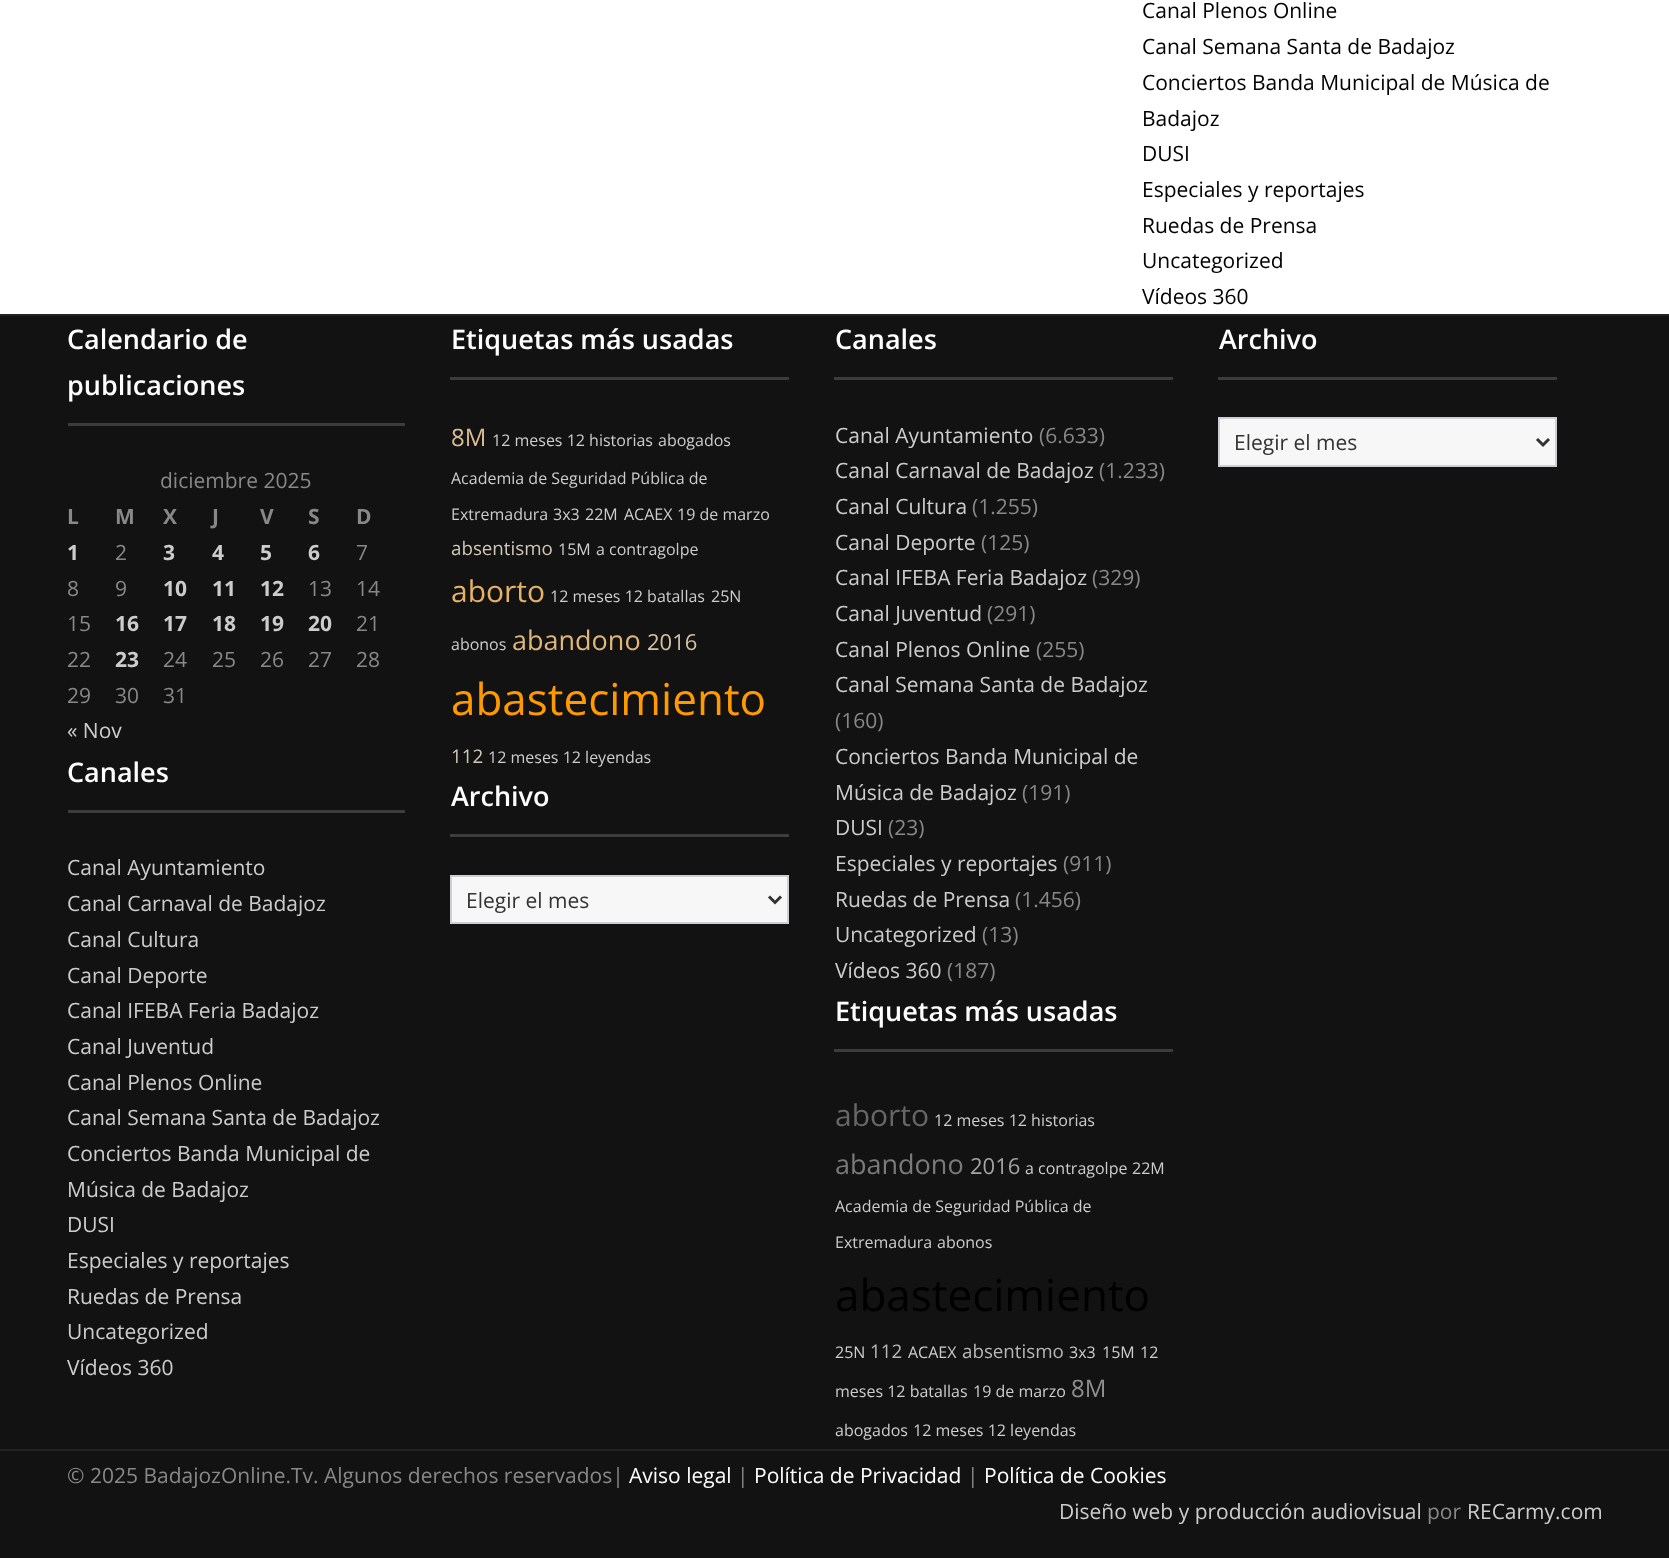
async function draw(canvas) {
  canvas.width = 1669;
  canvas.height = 1558;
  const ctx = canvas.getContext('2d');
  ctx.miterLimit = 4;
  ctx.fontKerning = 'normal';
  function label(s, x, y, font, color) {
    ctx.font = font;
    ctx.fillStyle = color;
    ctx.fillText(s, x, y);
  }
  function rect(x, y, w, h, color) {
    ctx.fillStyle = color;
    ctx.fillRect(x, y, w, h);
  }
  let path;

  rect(0, 0, 1669, 1558, '#fff');
  label('Canal Plenos Online', 1142, 18, '21px Open Sans', '#000');
  label('Canal Semana Santa de Badajoz', 1142, 54, '21px Open Sans', '#000');
  label('Conciertos Banda Municipal de Música de', 1142, 90, '21px Open Sans', '#000');
  label('Badajoz', 1142, 126, '21px Open Sans', '#000');
  label('DUSI', 1142, 161, '21px Open Sans', '#000');
  label('Especiales y reportajes', 1142, 197, '21px Open Sans', '#000');
  label('Ruedas de Prensa', 1142, 233, '21px Open Sans', '#000');
  label('Uncategorized', 1142, 268, '21px Open Sans', '#000');
  label('Vídeos 360', 1142, 304, '21px Open Sans', '#000');
  rect(0, 316, 1669, 1242, '#121212');
  rect(0, 314, 1669, 2, '#222');
  rect(68, 423, 337, 3, '#3c3c3c');
  label('Calendario de', 67, 349, '600 27px Open Sans', '#fff');
  label('publicaciones', 67, 395, '600 27px Open Sans', '#fff');
  label('diciembre 2025', 160, 488, '21px Open Sans', '#888');
  label('L', 67, 524, 'bold 21px Open Sans', '#888');
  label('M', 115, 524, 'bold 21px Open Sans', '#888');
  label('X', 163, 524, 'bold 21px Open Sans', '#888');
  label('J', 212, 524, 'bold 21px Open Sans', '#888');
  label('V', 260, 524, 'bold 21px Open Sans', '#888');
  label('S', 308, 524, 'bold 21px Open Sans', '#888');
  label('D', 356, 524, 'bold 21px Open Sans', '#888');
  label('1', 67, 560, 'bold 21px Open Sans', '#ccc');
  label('2', 115, 560, '21px Open Sans', '#888');
  label('3', 163, 560, 'bold 21px Open Sans', '#ccc');
  label('4', 212, 560, 'bold 21px Open Sans', '#ccc');
  label('5', 260, 560, 'bold 21px Open Sans', '#ccc');
  label('6', 308, 560, 'bold 21px Open Sans', '#ccc');
  label('7', 356, 560, '21px Open Sans', '#888');
  label('8', 67, 596, '21px Open Sans', '#888');
  label('9', 115, 596, '21px Open Sans', '#888');
  label('10', 163, 596, 'bold 21px Open Sans', '#ccc');
  label('11', 212, 596, 'bold 21px Open Sans', '#ccc');
  label('12', 260, 596, 'bold 21px Open Sans', '#ccc');
  label('13', 308, 596, '21px Open Sans', '#888');
  label('14', 356, 596, '21px Open Sans', '#888');
  label('15', 67, 631, '21px Open Sans', '#888');
  label('16', 115, 631, 'bold 21px Open Sans', '#ccc');
  label('17', 163, 631, 'bold 21px Open Sans', '#ccc');
  label('18', 212, 631, 'bold 21px Open Sans', '#ccc');
  label('19', 260, 631, 'bold 21px Open Sans', '#ccc');
  label('20', 308, 631, 'bold 21px Open Sans', '#ccc');
  label('21', 356, 631, '21px Open Sans', '#888');
  label('22', 67, 667, '21px Open Sans', '#888');
  label('23', 115, 667, 'bold 21px Open Sans', '#ccc');
  label('24', 163, 667, '21px Open Sans', '#888');
  label('25', 212, 667, '21px Open Sans', '#888');
  label('26', 260, 667, '21px Open Sans', '#888');
  label('27', 308, 667, '21px Open Sans', '#888');
  label('28', 356, 667, '21px Open Sans', '#888');
  label('29', 67, 703, '21px Open Sans', '#888');
  label('30', 115, 703, '21px Open Sans', '#888');
  label('31', 163, 703, '21px Open Sans', '#888');
  label('« Nov', 67, 738, '21px Open Sans', '#ccc');
  rect(68, 810, 337, 3, '#3c3c3c');
  label('Canales', 67, 782, '600 27px Open Sans', '#fff');
  label('Canal Ayuntamiento', 67, 875, '21px Open Sans', '#ccc');
  label('Canal Carnaval de Badajoz', 67, 911, '21px Open Sans', '#ccc');
  label('Canal Cultura', 67, 947, '21px Open Sans', '#ccc');
  label('Canal Deporte', 67, 983, '21px Open Sans', '#ccc');
  label('Canal IFEBA Feria Badajoz', 67, 1018, '21px Open Sans', '#ccc');
  label('Canal Juventud', 67, 1054, '21px Open Sans', '#ccc');
  label('Canal Plenos Online', 67, 1090, '21px Open Sans', '#ccc');
  label('Canal Semana Santa de Badajoz', 67, 1125, '21px Open Sans', '#ccc');
  label('Conciertos Banda Municipal de', 67, 1161, '21px Open Sans', '#ccc');
  label('Música de Badajoz', 67, 1197, '21px Open Sans', '#ccc');
  label('DUSI', 67, 1232, '21px Open Sans', '#ccc');
  label('Especiales y reportajes', 67, 1268, '21px Open Sans', '#ccc');
  label('Ruedas de Prensa', 67, 1304, '21px Open Sans', '#ccc');
  label('Uncategorized', 67, 1339, '21px Open Sans', '#ccc');
  label('Vídeos 360', 67, 1375, '21px Open Sans', '#ccc');
  rect(450, 377, 339, 3, '#3c3c3c');
  label('Etiquetas más usadas', 451, 349, '600 27px Open Sans', '#fff');
  label('8M', 451, 446, '24px Open Sans', '#dbbc8e');
  label('12 meses 12 historias', 492, 446, '16px Open Sans', '#ccc');
  label('abogados', 658, 446, '16px Open Sans', '#ccc');
  label('Academia de Seguridad Pública de', 451, 484, '16px Open Sans', '#ccc');
  label('Extremadura', 451, 520, '16px Open Sans', '#ccc');
  label('3x3', 553, 520, '16px Open Sans', '#ccc');
  label('22M', 585, 520, '16px Open Sans', '#ccc');
  label('ACAEX', 624, 520, '16px Open Sans', '#ccc');
  label('19 de marzo', 677, 520, '16px Open Sans', '#ccc');
  label('absentismo', 451, 555, '18.75px Open Sans', '#d1c6b7');
  label('15M', 558, 555, '16px Open Sans', '#ccc');
  label('a contragolpe', 596, 555, '16px Open Sans', '#ccc');
  label('aborto', 451, 602, '30px Open Sans', '#e5b266');
  label('12 meses 12 batallas', 550, 602, '16px Open Sans', '#ccc');
  label('25N', 711, 602, '16px Open Sans', '#ccc');
  label('abonos', 451, 650, '16px Open Sans', '#ccc');
  label('abandono', 512, 650, '27px Open Sans', '#e0b77a');
  label('2016', 647, 650, '22px Open Sans', '#d6c1a3');
  label('abastecimiento', 451, 715, '44px Open Sans', '#f90');
  label('112', 451, 763, '18.75px Open Sans', '#d1c6b7');
  label('12 meses 12 leyendas', 488, 763, '16px Open Sans', '#ccc');
  rect(450, 834, 339, 3, '#3c3c3c');
  label('Archivo', 451, 806, '600 27px Open Sans', '#fff');
  ctx.fillStyle = '#f7f7f7';
  ctx.beginPath();
  ctx.rect(451, 876, 337, 47);
  ctx.fill();
  ctx.strokeStyle = '#cdcfd4';
  ctx.lineWidth = 2;
  ctx.stroke();
  path = new Path2D('M769 896.5L775 902.5L781 896.5');
  ctx.strokeStyle = '#333';
  ctx.lineWidth = 3;
  ctx.stroke(path);
  label('Elegir el mes', 466, 908, '21px Open Sans', '#333');
  rect(834, 377, 339, 3, '#3c3c3c');
  label('Canales', 835, 349, '600 27px Open Sans', '#fff');
  label('Canal Ayuntamiento', 835, 443, '21px Open Sans', '#ccc');
  label('(6.633)', 1039, 443, '21px Open Sans', '#888');
  label('Canal Carnaval de Badajoz', 835, 478, '21px Open Sans', '#ccc');
  label('(1.233)', 1099, 478, '21px Open Sans', '#888');
  label('Canal Cultura', 835, 514, '21px Open Sans', '#ccc');
  label('(1.255)', 972, 514, '21px Open Sans', '#888');
  label('Canal Deporte', 835, 550, '21px Open Sans', '#ccc');
  label('(125)', 981, 550, '21px Open Sans', '#888');
  label('Canal IFEBA Feria Badajoz', 835, 585, '21px Open Sans', '#ccc');
  label('(329)', 1092, 585, '21px Open Sans', '#888');
  label('Canal Juventud', 835, 621, '21px Open Sans', '#ccc');
  label('(291)', 987, 621, '21px Open Sans', '#888');
  label('Canal Plenos Online', 835, 657, '21px Open Sans', '#ccc');
  label('(255)', 1036, 657, '21px Open Sans', '#888');
  label('Canal Semana Santa de Badajoz', 835, 692, '21px Open Sans', '#ccc');
  label('(160)', 835, 728, '21px Open Sans', '#888');
  label('Conciertos Banda Municipal de', 835, 764, '21px Open Sans', '#ccc');
  label('Música de Badajoz', 835, 800, '21px Open Sans', '#ccc');
  label('(191)', 1022, 800, '21px Open Sans', '#888');
  label('DUSI', 835, 835, '21px Open Sans', '#ccc');
  label('(23)', 888, 835, '21px Open Sans', '#888');
  label('Especiales y reportajes', 835, 871, '21px Open Sans', '#ccc');
  label('(911)', 1063, 871, '21px Open Sans', '#888');
  label('Ruedas de Prensa', 835, 907, '21px Open Sans', '#ccc');
  label('(1.456)', 1015, 907, '21px Open Sans', '#888');
  label('Uncategorized', 835, 942, '21px Open Sans', '#ccc');
  label('(13)', 982, 942, '21px Open Sans', '#888');
  label('Vídeos 360', 835, 978, '21px Open Sans', '#ccc');
  label('(187)', 947, 978, '21px Open Sans', '#888');
  rect(834, 1049, 339, 3, '#3c3c3c');
  label('Etiquetas más usadas', 835, 1021, '600 27px Open Sans', '#fff');
  label('aborto', 835, 1126, '30px Open Sans', '#666');
  label('12 meses 12 historias', 934, 1126, '16px Open Sans', '#ccc');
  label('abandono', 835, 1174, '27px Open Sans', '#7a7a7a');
  label('2016', 970, 1174, '22px Open Sans', '#a3a3a3');
  label('a contragolpe', 1025, 1174, '16px Open Sans', '#ccc');
  label('22M', 1132, 1174, '16px Open Sans', '#ccc');
  label('Academia de Seguridad Pública de', 835, 1212, '16px Open Sans', '#ccc');
  label('Extremadura', 835, 1248, '16px Open Sans', '#ccc');
  label('abonos', 937, 1248, '16px Open Sans', '#ccc');
  label('abastecimiento', 835, 1311, '44px Open Sans', '#000');
  label('25N', 835, 1358, '16px Open Sans', '#ccc');
  label('112', 870, 1358, '18.75px Open Sans', '#b7b7b7');
  label('ACAEX', 908, 1358, '16px Open Sans', '#ccc');
  label('absentismo', 962, 1358, '18.75px Open Sans', '#b7b7b7');
  label('3x3', 1069, 1358, '16px Open Sans', '#ccc');
  label('15M', 1102, 1358, '16px Open Sans', '#ccc');
  label('12', 1140, 1358, '16px Open Sans', '#ccc');
  label('meses 12 batallas', 835, 1397, '16px Open Sans', '#ccc');
  label('19 de marzo', 973, 1397, '16px Open Sans', '#ccc');
  label('8M', 1071, 1397, '24px Open Sans', '#8e8e8e');
  label('abogados', 835, 1436, '16px Open Sans', '#ccc');
  label('12 meses 12 leyendas', 913, 1436, '16px Open Sans', '#ccc');
  rect(1218, 377, 339, 3, '#3c3c3c');
  label('Archivo', 1219, 349, '600 27px Open Sans', '#fff');
  ctx.fillStyle = '#f7f7f7';
  ctx.beginPath();
  ctx.rect(1219, 418, 337, 48);
  ctx.fill();
  ctx.strokeStyle = '#cdcfd4';
  ctx.lineWidth = 2;
  ctx.stroke();
  path = new Path2D('M1537 439L1543 445L1549 439');
  ctx.strokeStyle = '#333';
  ctx.lineWidth = 3;
  ctx.stroke(path);
  label('Elegir el mes', 1234, 450, '21px Open Sans', '#333');
  rect(0, 1449, 1669, 2, '#222');
  label('© 2025 BadajozOnline.Tv. Algunos derechos reservados|', 67, 1483, '21px Open Sans', '#888');
  label('Aviso legal', 629, 1483, '21px Open Sans', '#fff');
  label('|', 737, 1483, '21px Open Sans', '#888');
  label('Política de Privacidad', 754, 1483, '21px Open Sans', '#fff');
  label('|', 967, 1483, '21px Open Sans', '#888');
  label('Política de Cookies', 984, 1483, '21px Open Sans', '#fff');
  label('Diseño web y producción audiovisual', 1059, 1519, '21px Open Sans', '#ccc');
  label('por', 1427, 1519, '21px Open Sans', '#888');
  label('RECarmy.com', 1467, 1519, '21px Open Sans', '#ccc');
}

draw(document.querySelector('canvas'));
